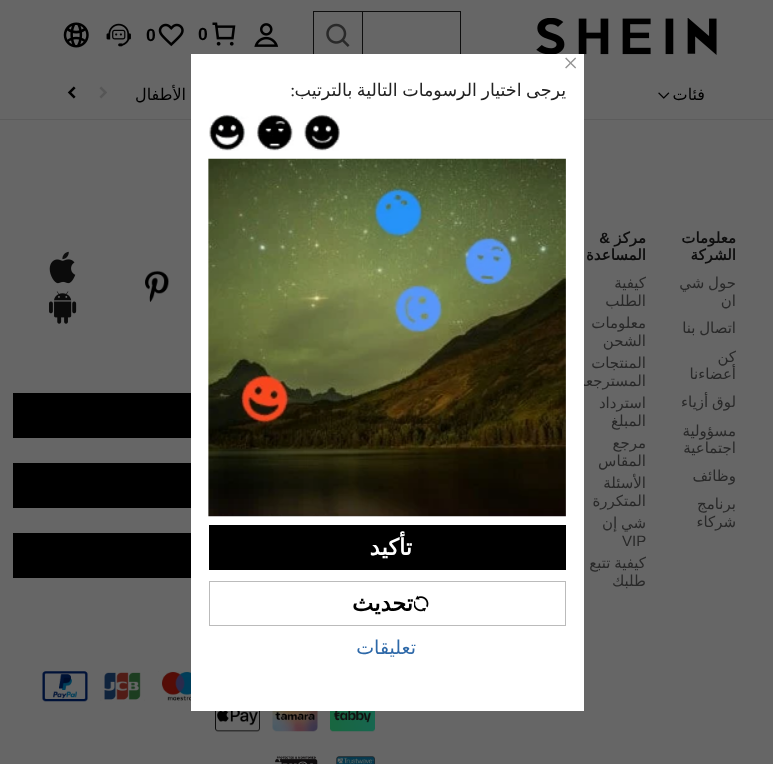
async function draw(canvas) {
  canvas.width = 773;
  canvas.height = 764;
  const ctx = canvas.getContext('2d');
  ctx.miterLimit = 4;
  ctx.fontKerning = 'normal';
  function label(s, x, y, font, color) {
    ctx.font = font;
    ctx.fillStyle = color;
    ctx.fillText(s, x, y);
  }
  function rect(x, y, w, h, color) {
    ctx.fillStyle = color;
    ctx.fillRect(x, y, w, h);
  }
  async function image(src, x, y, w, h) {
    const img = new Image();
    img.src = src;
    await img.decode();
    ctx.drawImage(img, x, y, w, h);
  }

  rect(0, 0, 773, 764, '#666');
  await image('assets/img1.png', 536, 18, 181, 37);
  rect(363, 11, 98, 1, '#0e0e0e');
  rect(460, 11, 1, 48, '#0e0e0e');
  ctx.strokeStyle = '#0e0e0e';
  ctx.strokeRect(313.5, 11.5, 49, 47);
  await image('assets/img2.png', 326, 23, 24, 24);
  await image('assets/img3.png', 254, 23, 25, 24);
  await image('assets/img4.png', 212, 22, 24, 24);
  label('0', 198, 40, 'bold 17.5px Liberation Sans', '#000');
  await image('assets/img5.png', 158, 23, 26, 24);
  label('0', 146, 41, 'bold 17.5px Liberation Sans', '#000');
  await image('assets/img6.png', 106, 23, 25, 24);
  await image('assets/img7.png', 63, 22, 26, 26);
  rect(0, 119, 773, 1, '#5c5c5c');
  ctx.direction = 'rtl';
  label('فئات', 705, 100, '16px DejaVu Sans', '#000');
  await image('assets/img8.png', 658, 92, 12, 7);
  label('الأطفال', 186, 100, '16px DejaVu Sans', '#000');
  await image('assets/img9.png', 99, 86, 8, 13);
  await image('assets/img10.png', 67, 86, 9, 13);
  label('معلومات', 736, 243, 'bold 15px DejaVu Sans', '#0e0e0e');
  label('الشركة', 736, 260, 'bold 15px DejaVu Sans', '#0e0e0e');
  ctx.wordSpacing = '-1px';
  label('حول شي', 736, 288, '15px DejaVu Sans', '#292929');
  ctx.wordSpacing = '0px';
  label('ان', 736, 306, '15px DejaVu Sans', '#292929');
  ctx.wordSpacing = '-1px';
  label('اتصال بنا', 736, 333, '15px DejaVu Sans', '#292929');
  ctx.wordSpacing = '0px';
  label('كن', 736, 362, '15px DejaVu Sans', '#292929');
  label('أعضاءنا', 736, 379, '15px DejaVu Sans', '#292929');
  ctx.wordSpacing = '-1px';
  label('لوق أزياء', 736, 407, '15px DejaVu Sans', '#292929');
  ctx.wordSpacing = '0px';
  label('مسؤولية', 736, 436, '15px DejaVu Sans', '#292929');
  label('اجتماعية', 736, 453, '15px DejaVu Sans', '#292929');
  label('وظائف', 736, 481, '15px DejaVu Sans', '#292929');
  label('برنامج', 736, 509, '15px DejaVu Sans', '#292929');
  label('شركاء', 736, 527, '15px DejaVu Sans', '#292929');
  label('مركز', 646, 243, 'bold 15px DejaVu Sans', '#0e0e0e');
  label('&', 610, 243, 'bold 15px Liberation Sans', '#0e0e0e');
  label('المساعدة', 646, 260, 'bold 15px DejaVu Sans', '#0e0e0e');
  label('كيفية', 646, 288, '15px DejaVu Sans', '#292929');
  label('الطلب', 646, 306, '15px DejaVu Sans', '#292929');
  label('معلومات', 646, 328, '15px DejaVu Sans', '#292929');
  label('الشحن', 646, 346, '15px DejaVu Sans', '#292929');
  label('المنتجات', 646, 368, '15px DejaVu Sans', '#292929');
  label('المسترجعة', 646, 386, '15px DejaVu Sans', '#292929');
  label('استرداد', 646, 408, '15px DejaVu Sans', '#292929');
  label('المبلغ', 646, 426, '15px DejaVu Sans', '#292929');
  label('مرجع', 646, 448, '15px DejaVu Sans', '#292929');
  label('المقاس', 646, 466, '15px DejaVu Sans', '#292929');
  label('الأسئلة', 646, 488, '15px DejaVu Sans', '#292929');
  label('المتكررة', 646, 506, '15px DejaVu Sans', '#292929');
  ctx.wordSpacing = '-1px';
  label('شي إن', 646, 528, '15px DejaVu Sans', '#292929');
  ctx.wordSpacing = '0px';
  ctx.direction = 'ltr';
  label('VIP', 622, 546, '15px Liberation Sans', '#292929');
  ctx.wordSpacing = '-1px';
  ctx.direction = 'rtl';
  label('كيفية تتبع', 646, 568, '15px DejaVu Sans', '#292929');
  ctx.wordSpacing = '0px';
  label('طلبك', 646, 586, '15px DejaVu Sans', '#292929');
  await image('assets/img11.png', 145, 270, 24, 32);
  await image('assets/img12.png', 49, 251, 27, 33);
  await image('assets/img13.png', 49, 291, 28, 33);
  rect(13, 393, 178, 45, '#000');
  rect(13, 463, 178, 45, '#000');
  rect(13, 533, 178, 45, '#000');
  await image('assets/img14.png', 158, 671, 33, 30);
  await image('assets/img15.png', 100, 672, 45, 29);
  await image('assets/img16.png', 42, 671, 46, 31);
  await image('assets/img17.png', 330, 711, 45, 21);
  await image('assets/img18.png', 272, 711, 46, 21);
  await image('assets/img19.png', 215, 711, 45, 21);
  await image('assets/img20.png', 336, 756, 39, 8);
  await image('assets/img21.png', 275, 756, 43, 8);
  rect(191, 54, 393, 657, '#fff');
  ctx.direction = 'ltr';
  label('×', 563, 72, '27px Liberation Serif', '#959595');
  ctx.save();
  ctx.beginPath();
  ctx.rect(209, 80, 357, 436);
  ctx.clip();
  ctx.wordSpacing = '-1px';
  ctx.direction = 'rtl';
  label('يرجى اختيار الرسومات التالية بالترتيب', 566, 96, '17.5px DejaVu Sans', '#222');
  ctx.restore();
  ctx.direction = 'rtl';
  label(':', 295, 96, '17.5px Liberation Serif', '#222');
  await image('assets/img22.png', 209, 114, 131, 37);
  await image('assets/img23.png', 208, 158, 358, 359);
  rect(209, 525, 357, 45, '#000');
  label('تأكيد', 412, 555, 'bold 22.5px DejaVu Sans', '#fff');
  ctx.strokeStyle = '#bbb';
  ctx.strokeRect(209.5, 581.5, 356, 44);
  await image('assets/img24.png', 414, 595, 15, 17);
  label('تحديث', 413, 611, 'bold 22.5px DejaVu Sans', '#000');
  label('تعليقات', 416, 654, '19px DejaVu Sans', '#2d68a8');
}

draw(document.querySelector('canvas'));
